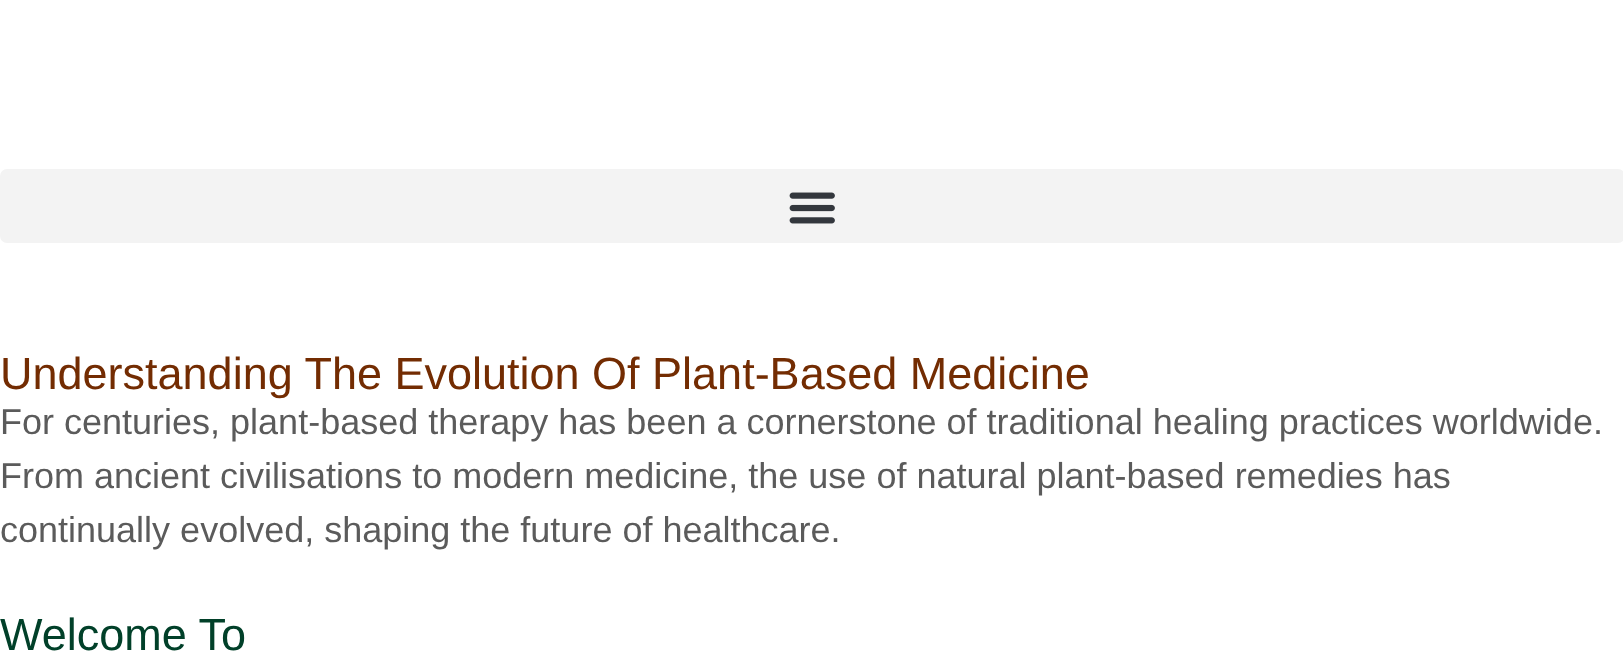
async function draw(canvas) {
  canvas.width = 1623;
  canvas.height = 652;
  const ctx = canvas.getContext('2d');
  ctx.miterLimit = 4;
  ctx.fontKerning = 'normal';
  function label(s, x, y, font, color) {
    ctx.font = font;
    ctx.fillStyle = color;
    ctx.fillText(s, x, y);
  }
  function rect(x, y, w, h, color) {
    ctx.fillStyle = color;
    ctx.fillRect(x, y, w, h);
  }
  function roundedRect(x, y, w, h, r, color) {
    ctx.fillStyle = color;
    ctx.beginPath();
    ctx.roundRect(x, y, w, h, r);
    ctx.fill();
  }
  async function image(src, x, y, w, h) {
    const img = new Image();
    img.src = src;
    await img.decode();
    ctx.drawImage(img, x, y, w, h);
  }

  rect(0, 0, 1623, 652, '#fff');
  roundedRect(0, 169, 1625, 74, 7, '#f3f3f3');
  await image('assets/img1.png', 789, 192, 46, 32);
  label('Understanding The Evolution Of Plant-Based Medicine', 0, 389, '45px Liberation Sans', '#732c02');
  label('For centuries, plant-based therapy has been a cornerstone of traditional healing practices worldwide.', 0, 434, '36px Liberation Sans', '#5b5b5b');
  label('From ancient civilisations to modern medicine, the use of natural plant-based remedies has', 0, 488, '36px Liberation Sans', '#5b5b5b');
  label('continually evolved, shaping the future of healthcare.', 0, 542, '36px Liberation Sans', '#5b5b5b');
  label('Welcome To', 0, 650, '45px Liberation Sans', '#014029');
}

draw(document.querySelector('canvas'));
